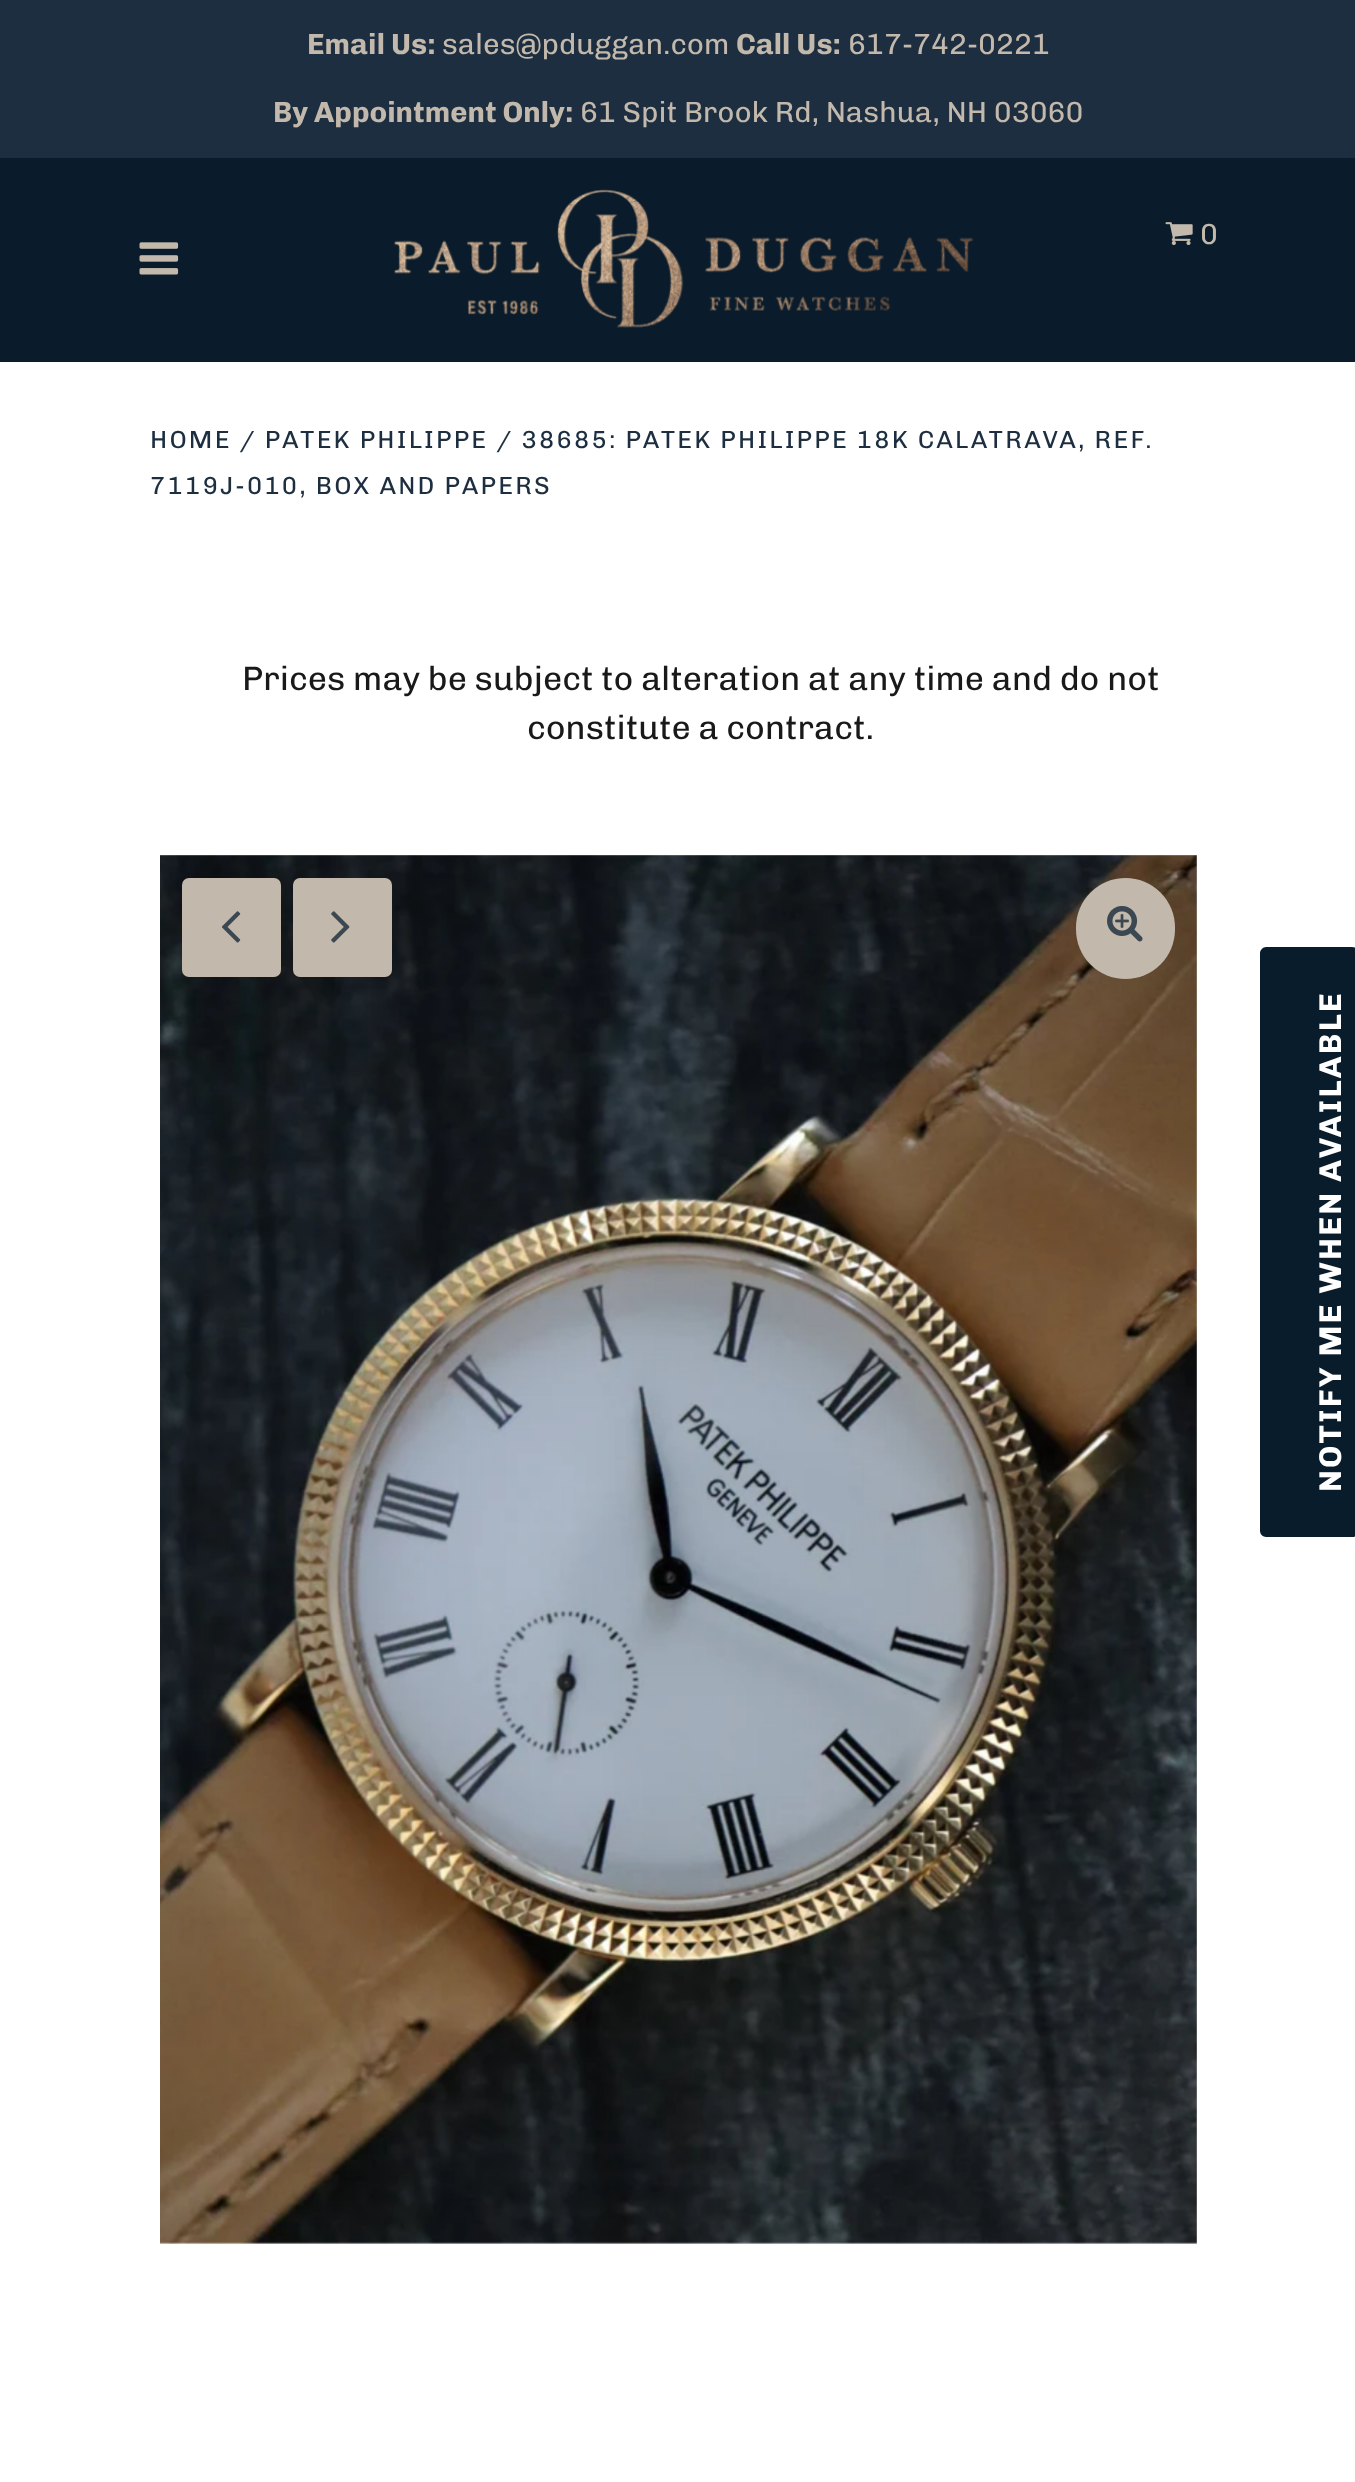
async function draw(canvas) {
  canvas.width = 1355;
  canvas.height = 2482;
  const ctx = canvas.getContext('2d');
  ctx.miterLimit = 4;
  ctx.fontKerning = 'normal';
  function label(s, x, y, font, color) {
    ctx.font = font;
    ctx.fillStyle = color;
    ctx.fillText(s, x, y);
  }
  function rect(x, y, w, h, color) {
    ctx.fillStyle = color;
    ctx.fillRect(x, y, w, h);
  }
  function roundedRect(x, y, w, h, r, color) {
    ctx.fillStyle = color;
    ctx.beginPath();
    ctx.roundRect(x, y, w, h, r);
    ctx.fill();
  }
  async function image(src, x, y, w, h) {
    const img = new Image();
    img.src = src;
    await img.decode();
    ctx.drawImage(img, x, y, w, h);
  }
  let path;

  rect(0, 0, 1355, 2482, '#fff');
  rect(0, 158, 1355, 204, '#0a1c2b');
  rect(0, 0, 1355, 158, '#1c2e3f');
  label('Email Us:', 307, 54, 'bold 29.25px Chivo', '#c2b8ac');
  label('sales@pduggan.com', 442, 54, '29.25px Chivo', '#c2b8ac');
  label('Call Us:', 736, 54, 'bold 29.25px Chivo', '#c2b8ac');
  label('617-742-0221', 848, 54, '29.25px Chivo', '#c2b8ac');
  label('By Appointment Only:', 273, 122, 'bold 29.25px Chivo', '#c2b8ac');
  label('61 Spit Brook Rd, Nashua, NH 03060', 580, 122, '29.25px Chivo', '#c2b8ac');
  await image('assets/img1.png', 394, 189, 580, 139);
  await image('assets/img2.png', 1165, 222, 28, 24);
  label('0', 1200, 244, '29.25px Chivo', '#c2b8ac');
  await image('assets/img3.png', 139, 242, 40, 33);
  ctx.letterSpacing = '2.25px';
  label('HOME / PATEK PHILIPPE / 38685: PATEK PHILIPPE 18K CALATRAVA, REF.', 150, 448, '24.75px Chivo', '#1c2e3f');
  label('7119J-010, BOX AND PAPERS', 150, 494, '24.75px Chivo', '#1c2e3f');
  ctx.letterSpacing = '0px';
  label('Prices may be subject to alteration at any time and do not', 242, 690, '33.75px Chivo', '#191919');
  label('constitute a contract.', 527, 739, '33.75px Chivo', '#191919');
  await image('assets/img4.png', 160, 855, 1037, 1389);
  roundedRect(1076, 878, 99, 101, 49.5, '#c2b8ac');
  await image('assets/img5.png', 1107, 906, 36, 36);
  roundedRect(182, 878, 99, 99, 7, '#c2b8ac');
  await image('assets/img6.png', 222, 911, 19, 32);
  roundedRect(293, 878, 99, 99, 7, '#c2b8ac');
  await image('assets/img7.png', 331, 911, 19, 32);
  ctx.fillStyle = '#091c2b';
  path = new Path2D('M1260 1531V953C1260 950 1263 947 1266 947H1352C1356 947 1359 950 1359 953V1531C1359 1534 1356 1537 1352 1537H1266C1263 1537 1260 1534 1260 1531Z');
  ctx.fill(path);
  ctx.letterSpacing = '2.25px';
  ctx.font = 'bold 31.5px Chivo';
  ctx.fillStyle = '#fff';
  ctx.save();
  ctx.translate(1341, 1492);
  ctx.rotate(-90 * Math.PI / 180);
  ctx.fillText('NOTIFY ME WHEN AVAILABLE', 0, 0);
  ctx.restore();
}

draw(document.querySelector('canvas'));
